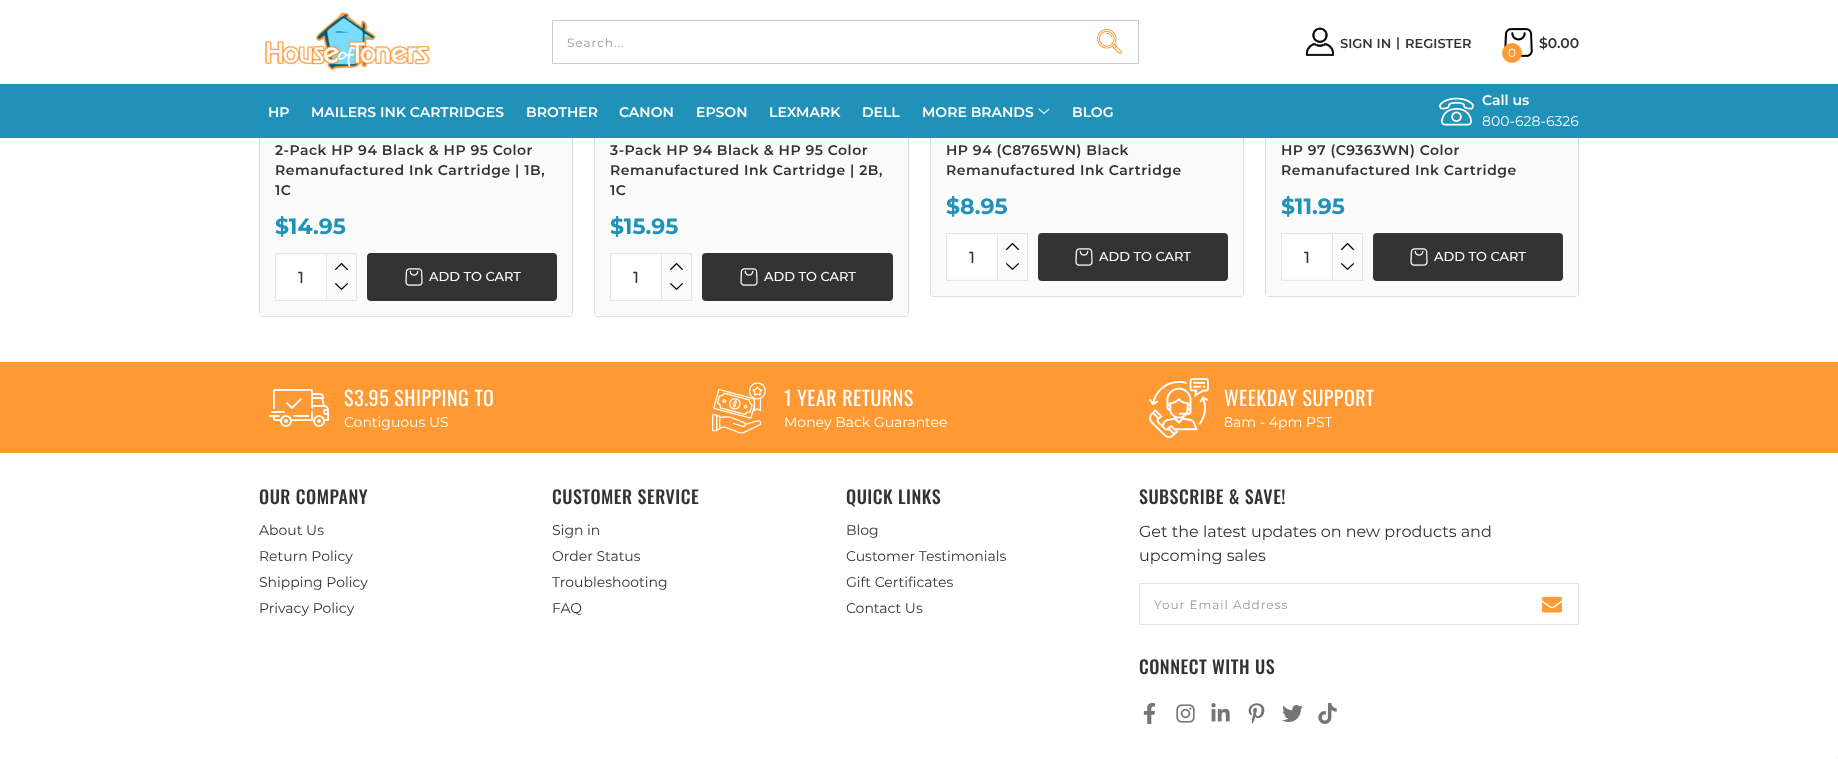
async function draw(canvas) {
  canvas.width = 1838;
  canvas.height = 759;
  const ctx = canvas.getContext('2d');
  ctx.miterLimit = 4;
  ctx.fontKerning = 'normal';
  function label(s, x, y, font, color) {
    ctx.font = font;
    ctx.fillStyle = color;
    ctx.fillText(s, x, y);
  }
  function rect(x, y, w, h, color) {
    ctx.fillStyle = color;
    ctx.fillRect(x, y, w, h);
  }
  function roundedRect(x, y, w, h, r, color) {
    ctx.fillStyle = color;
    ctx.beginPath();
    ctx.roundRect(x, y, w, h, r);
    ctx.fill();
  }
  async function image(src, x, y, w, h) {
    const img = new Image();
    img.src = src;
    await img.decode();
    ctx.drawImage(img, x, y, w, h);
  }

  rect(0, 0, 1838, 759, '#fff');
  ctx.beginPath();
  ctx.roundRect(259.5, -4.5, 313, 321, 3.5);
  ctx.strokeStyle = '#ddd';
  ctx.stroke();
  ctx.beginPath();
  ctx.roundRect(594.5, -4.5, 314, 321, 3.5);
  ctx.stroke();
  ctx.beginPath();
  ctx.roundRect(930.5, -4.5, 313, 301, 3.5);
  ctx.stroke();
  ctx.beginPath();
  ctx.roundRect(1265.5, -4.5, 313, 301, 3.5);
  ctx.stroke();
  rect(259, 0, 1320, 84, '#fff');
  await image('assets/img1.png', 265, 12, 165, 58);
  ctx.strokeStyle = '#ccc';
  ctx.strokeRect(552.5, 20.5, 586, 43);
  ctx.letterSpacing = '1px';
  label('Search...', 567, 47, '12px Montserrat', '#999');
  await image('assets/img2.png', 1097, 29, 25, 25);
  await image('assets/img3.png', 1305, 27, 30, 29);
  ctx.letterSpacing = '0px';
  label('SIGN IN', 1340, 48, '600 13px Montserrat', '#333');
  label('|', 1396, 47, '600 13px Montserrat', '#333');
  label('REGISTER', 1405, 48, '600 13px Montserrat', '#333');
  await image('assets/img4.png', 1504, 28, 29, 29);
  label('$0.00', 1539, 48, '600 14px Montserrat', '#333');
  ctx.fillStyle = '#f93';
  ctx.beginPath();
  ctx.arc(1512, 53, 10, 0, 2 * Math.PI);
  ctx.fill();
  label('0', 1508, 57, '12px Montserrat', '#fff');
  rect(0, 84, 1838, 54, '#2092b9');
  label('HP', 268, 117, '600 14px Montserrat', '#fff');
  label('MAILERS INK CARTRIDGES', 311, 117, '600 14px Montserrat', '#fff');
  label('BROTHER', 526, 117, '600 14px Montserrat', '#fff');
  label('CANON', 619, 117, '600 14px Montserrat', '#fff');
  label('EPSON', 696, 117, '600 14px Montserrat', '#fff');
  label('LEXMARK', 769, 117, '600 14px Montserrat', '#fff');
  label('DELL', 862, 117, '600 14px Montserrat', '#fff');
  label('MORE BRANDS', 922, 117, '600 14px Montserrat', '#fff');
  await image('assets/img5.png', 1038, 108, 12, 6);
  label('BLOG', 1072, 117, '600 14px Montserrat', '#fff');
  await image('assets/img6.png', 1439, 97, 35, 29);
  label('Call us', 1482, 105, '600 14px Montserrat', '#fff');
  label('800-628-6326', 1482, 126, '14px Montserrat', '#fff');
  rect(260, 138, 312, 178, '#fbfbfb');
  ctx.letterSpacing = '0.5px';
  label('2-Pack HP 94 Black & HP 95 Color', 275, 155, '600 14px Montserrat', '#333');
  label('Remanufactured Ink Cartridge | 1B,', 275, 175, '600 14px Montserrat', '#333');
  label('1C', 275, 195, '600 14px Montserrat', '#333');
  ctx.letterSpacing = '0px';
  label('$14.95', 275, 234, 'bold 22px Montserrat', '#2092b9');
  ctx.strokeStyle = '#e5e5e5';
  ctx.strokeRect(275.5, 253.5, 81, 47);
  rect(276, 256, 50, 42, '#fff');
  label('1', 298, 283, '500 16px Montserrat', '#333');
  rect(326, 254, 1, 46, '#e5e5e5');
  await image('assets/img7.png', 335, 263, 13, 7);
  await image('assets/img8.png', 335, 283, 13, 7);
  roundedRect(367, 253, 190, 48, 4, '#333');
  await image('assets/img9.png', 405, 268, 18, 18);
  label('ADD TO CART', 429, 281, '500 13px Montserrat', '#fff');
  rect(595, 138, 313, 178, '#fbfbfb');
  ctx.letterSpacing = '0.5px';
  label('3-Pack HP 94 Black & HP 95 Color', 610, 155, '600 14px Montserrat', '#333');
  label('Remanufactured Ink Cartridge | 2B,', 610, 175, '600 14px Montserrat', '#333');
  label('1C', 610, 195, '600 14px Montserrat', '#333');
  ctx.letterSpacing = '0px';
  label('$15.95', 610, 234, 'bold 22px Montserrat', '#2092b9');
  ctx.strokeRect(610.5, 253.5, 81, 47);
  rect(611, 256, 50, 42, '#fff');
  label('1', 633, 283, '500 16px Montserrat', '#333');
  rect(661, 254, 1, 46, '#e5e5e5');
  await image('assets/img7.png', 670, 263, 13, 7);
  await image('assets/img8.png', 670, 283, 13, 7);
  roundedRect(702, 253, 191, 48, 4, '#333');
  await image('assets/img9.png', 740, 268, 18, 18);
  label('ADD TO CART', 764, 281, '500 13px Montserrat', '#fff');
  rect(931, 138, 312, 158, '#fbfbfb');
  ctx.letterSpacing = '0.5px';
  label('HP 94 (C8765WN) Black', 946, 155, '600 14px Montserrat', '#333');
  label('Remanufactured Ink Cartridge', 946, 175, '600 14px Montserrat', '#333');
  ctx.letterSpacing = '0px';
  label('$8.95', 946, 214, 'bold 22px Montserrat', '#2092b9');
  ctx.strokeRect(946.5, 233.5, 81, 47);
  rect(947, 236, 50, 42, '#fff');
  label('1', 969, 263, '500 16px Montserrat', '#333');
  rect(997, 234, 1, 46, '#e5e5e5');
  await image('assets/img7.png', 1006, 243, 13, 7);
  await image('assets/img8.png', 1006, 263, 13, 7);
  roundedRect(1038, 233, 190, 48, 4, '#333');
  await image('assets/img9.png', 1075, 248, 18, 18);
  label('ADD TO CART', 1099, 261, '500 13px Montserrat', '#fff');
  rect(1266, 138, 312, 158, '#fbfbfb');
  ctx.letterSpacing = '0.5px';
  label('HP 97 (C9363WN) Color', 1281, 155, '600 14px Montserrat', '#333');
  label('Remanufactured Ink Cartridge', 1281, 175, '600 14px Montserrat', '#333');
  ctx.letterSpacing = '0px';
  label('$11.95', 1281, 214, 'bold 22px Montserrat', '#2092b9');
  ctx.strokeRect(1281.5, 233.5, 81, 47);
  rect(1282, 236, 50, 42, '#fff');
  label('1', 1304, 263, '500 16px Montserrat', '#333');
  rect(1332, 234, 1, 46, '#e5e5e5');
  await image('assets/img7.png', 1341, 243, 13, 7);
  await image('assets/img8.png', 1341, 263, 13, 7);
  roundedRect(1373, 233, 190, 48, 4, '#333');
  await image('assets/img9.png', 1410, 248, 18, 18);
  label('ADD TO CART', 1434, 261, '500 13px Montserrat', '#fff');
  rect(0, 362, 1838, 91, '#f93');
  await image('assets/img10.png', 269, 389, 60, 38);
  ctx.letterSpacing = '0.5px';
  label('$3.95 SHIPPING TO', 344, 406, '20px Oswald', '#fff');
  ctx.letterSpacing = '0px';
  label('Contiguous US', 344, 427, '14px Montserrat', '#fff');
  await image('assets/img11.png', 712, 382, 54, 52);
  ctx.letterSpacing = '0.5px';
  label('1 YEAR RETURNS', 784, 406, '20px Oswald', '#fff');
  ctx.letterSpacing = '0px';
  label('Money Back Guarantee', 784, 427, '14px Montserrat', '#fff');
  await image('assets/img12.png', 1149, 378, 60, 60);
  ctx.letterSpacing = '0.5px';
  label('WEEKDAY SUPPORT', 1224, 406, '20px Oswald', '#fff');
  ctx.letterSpacing = '0px';
  label('8am - 4pm PST', 1224, 427, '14px Montserrat', '#fff');
  ctx.letterSpacing = '0.5px';
  label('OUR COMPANY', 259, 504, '500 18px Oswald', '#333');
  ctx.letterSpacing = '0px';
  label('About Us', 259, 535, '14px Montserrat', '#333');
  label('Return Policy', 259, 561, '14px Montserrat', '#333');
  label('Shipping Policy', 259, 587, '14px Montserrat', '#333');
  label('Privacy Policy', 259, 613, '14px Montserrat', '#333');
  ctx.letterSpacing = '0.5px';
  label('CUSTOMER SERVICE', 552, 504, '500 18px Oswald', '#333');
  ctx.letterSpacing = '0px';
  label('Sign in', 552, 535, '14px Montserrat', '#333');
  label('Order Status', 552, 561, '14px Montserrat', '#333');
  label('Troubleshooting', 552, 587, '14px Montserrat', '#333');
  label('FAQ', 552, 613, '14px Montserrat', '#333');
  ctx.letterSpacing = '0.5px';
  label('QUICK LINKS', 846, 504, '500 18px Oswald', '#333');
  ctx.letterSpacing = '0px';
  label('Blog', 846, 535, '14px Montserrat', '#333');
  label('Customer Testimonials', 846, 561, '14px Montserrat', '#333');
  label('Gift Certificates', 846, 587, '14px Montserrat', '#333');
  label('Contact Us', 846, 613, '14px Montserrat', '#333');
  ctx.letterSpacing = '0.5px';
  label('SUBSCRIBE & SAVE!', 1139, 504, '500 18px Oswald', '#333');
  ctx.letterSpacing = '0px';
  label('Get the latest updates on new products and', 1139, 537, '16px Montserrat', '#333');
  label('upcoming sales', 1139, 561, '16px Montserrat', '#333');
  ctx.strokeRect(1139.5, 583.5, 439, 41);
  ctx.letterSpacing = '1px';
  label('Your Email Address', 1154, 609, '12px Montserrat', '#999');
  await image('assets/img13.png', 1542, 596, 20, 17);
  ctx.letterSpacing = '0.5px';
  label('CONNECT WITH US', 1139, 674, '500 18px Oswald', '#333');
  await image('assets/img14.png', 1143, 703, 13, 21);
  await image('assets/img15.png', 1176, 704, 19, 19);
  await image('assets/img16.png', 1211, 703, 19, 19);
  await image('assets/img17.png', 1248, 703, 17, 21);
  await image('assets/img18.png', 1282, 705, 21, 17);
  await image('assets/img19.png', 1318, 703, 19, 21);
  rect(1836, 757, 2, 2, '#f5f5f5');
}

draw(document.querySelector('canvas'));
